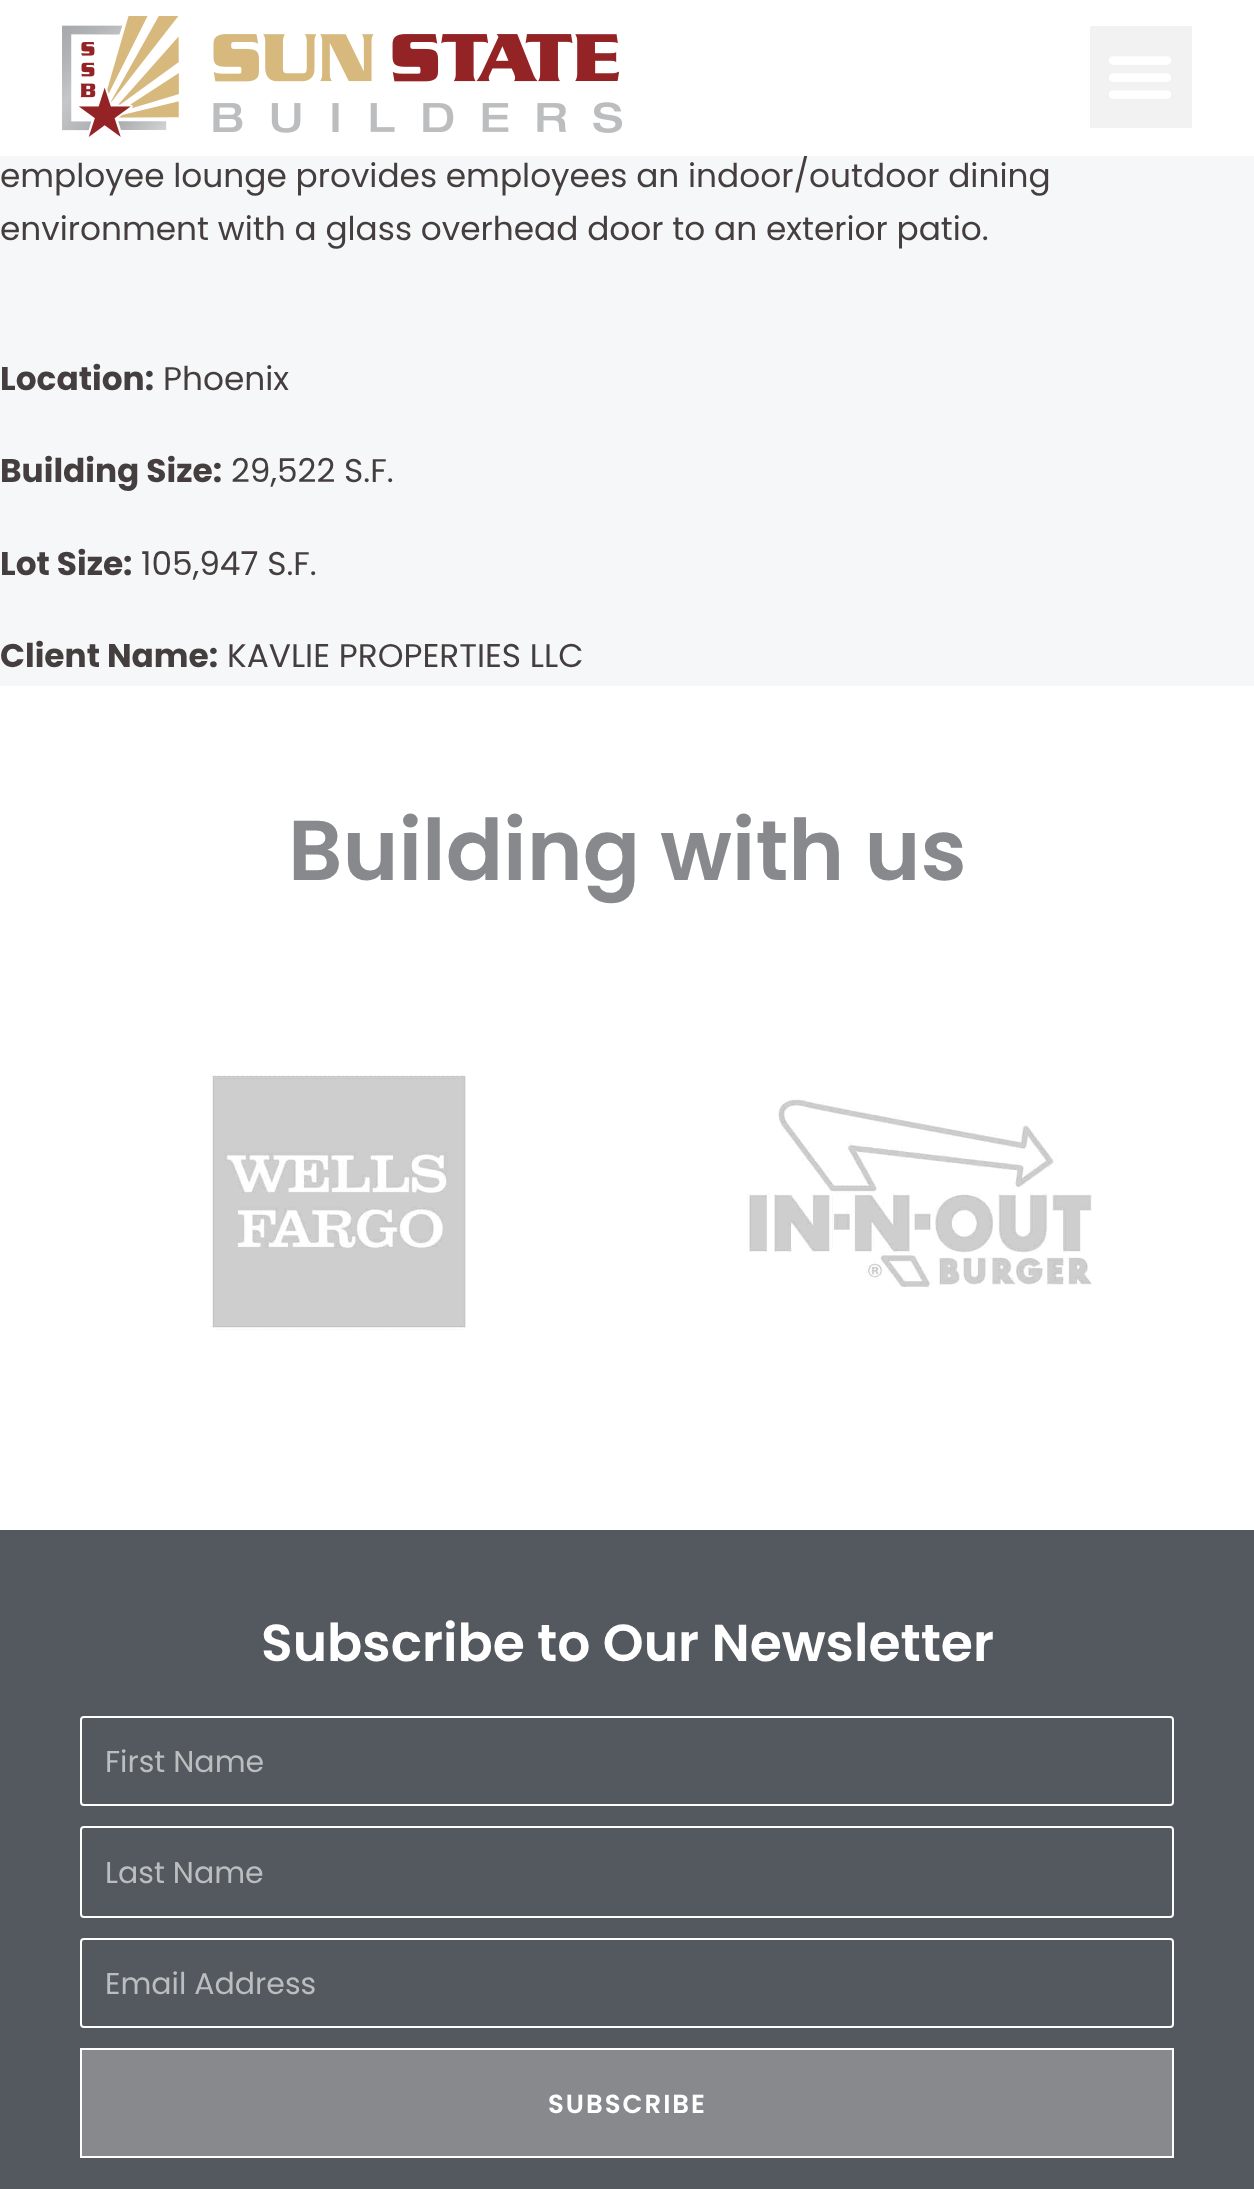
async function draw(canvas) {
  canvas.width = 1254;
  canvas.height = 2189;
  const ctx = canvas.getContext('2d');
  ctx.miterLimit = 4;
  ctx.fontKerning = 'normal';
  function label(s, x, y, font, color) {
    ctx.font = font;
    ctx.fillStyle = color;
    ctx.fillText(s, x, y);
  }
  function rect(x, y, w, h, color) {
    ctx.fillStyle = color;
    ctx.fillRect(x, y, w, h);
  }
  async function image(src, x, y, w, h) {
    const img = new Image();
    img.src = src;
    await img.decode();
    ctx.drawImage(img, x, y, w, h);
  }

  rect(0, 0, 1254, 2189, '#f6f7f8');
  rect(0, 0, 1254, 156, '#fff');
  await image('assets/img1.png', 62, 16, 560, 121);
  rect(1090, 26, 102, 102, '#f2f2f2');
  await image('assets/img2.png', 1109, 56, 62, 43);
  label('employee lounge provides employees an indoor/outdoor dining', 0, 187, '32.8px Poppins', '#453e3e');
  label('environment with a glass overhead door to an exterior patio.', 0, 240, '32.8px Poppins', '#453e3e');
  label('Location:', 0, 390, 'bold 32.8px Poppins', '#453e3e');
  label('Phoenix', 163, 390, '32.8px Poppins', '#453e3e');
  label('Building Size:', 0, 482, 'bold 32.8px Poppins', '#453e3e');
  label('29,522 S.F.', 231, 482, '32.8px Poppins', '#453e3e');
  label('Lot Size:', 0, 575, 'bold 32.8px Poppins', '#453e3e');
  label('105,947 S.F.', 141, 575, '32.8px Poppins', '#453e3e');
  label('Client Name:', 0, 667, 'bold 32.8px Poppins', '#453e3e');
  label('KAVLIE PROPERTIES LLC', 227, 667, '32.8px Poppins', '#453e3e');
  rect(0, 686, 1254, 844, '#fff');
  label('Building with us', 288, 880, '600 84.75px Poppins', '#87898d');
  await image('assets/img3.png', 210, 1074, 256, 256);
  await image('assets/img4.png', 747, 1099, 345, 190);
  rect(0, 1530, 1254, 659, '#54595f');
  label('Subscribe to Our Newsletter', 261, 1661, '600 52px Poppins', '#fff');
  ctx.beginPath();
  ctx.roundRect(81, 1717, 1092, 88, 3);
  ctx.strokeStyle = '#fff';
  ctx.lineWidth = 2;
  ctx.stroke();
  label('First Name', 105, 1772, '30px Poppins', '#bbbdbf');
  ctx.beginPath();
  ctx.roundRect(81, 1827, 1092, 90, 3);
  ctx.stroke();
  label('Last Name', 105, 1883, '30px Poppins', '#bbbdbf');
  ctx.beginPath();
  ctx.roundRect(81, 1939, 1092, 88, 3);
  ctx.stroke();
  label('Email Address', 105, 1994, '30px Poppins', '#bbbdbf');
  ctx.fillStyle = '#87898d';
  ctx.beginPath();
  ctx.rect(81, 2049, 1092, 108);
  ctx.fill();
  ctx.stroke();
  ctx.letterSpacing = '2px';
  label('SUBSCRIBE', 548, 2113, '600 26px Poppins', '#fff');
}

draw(document.querySelector('canvas'));
